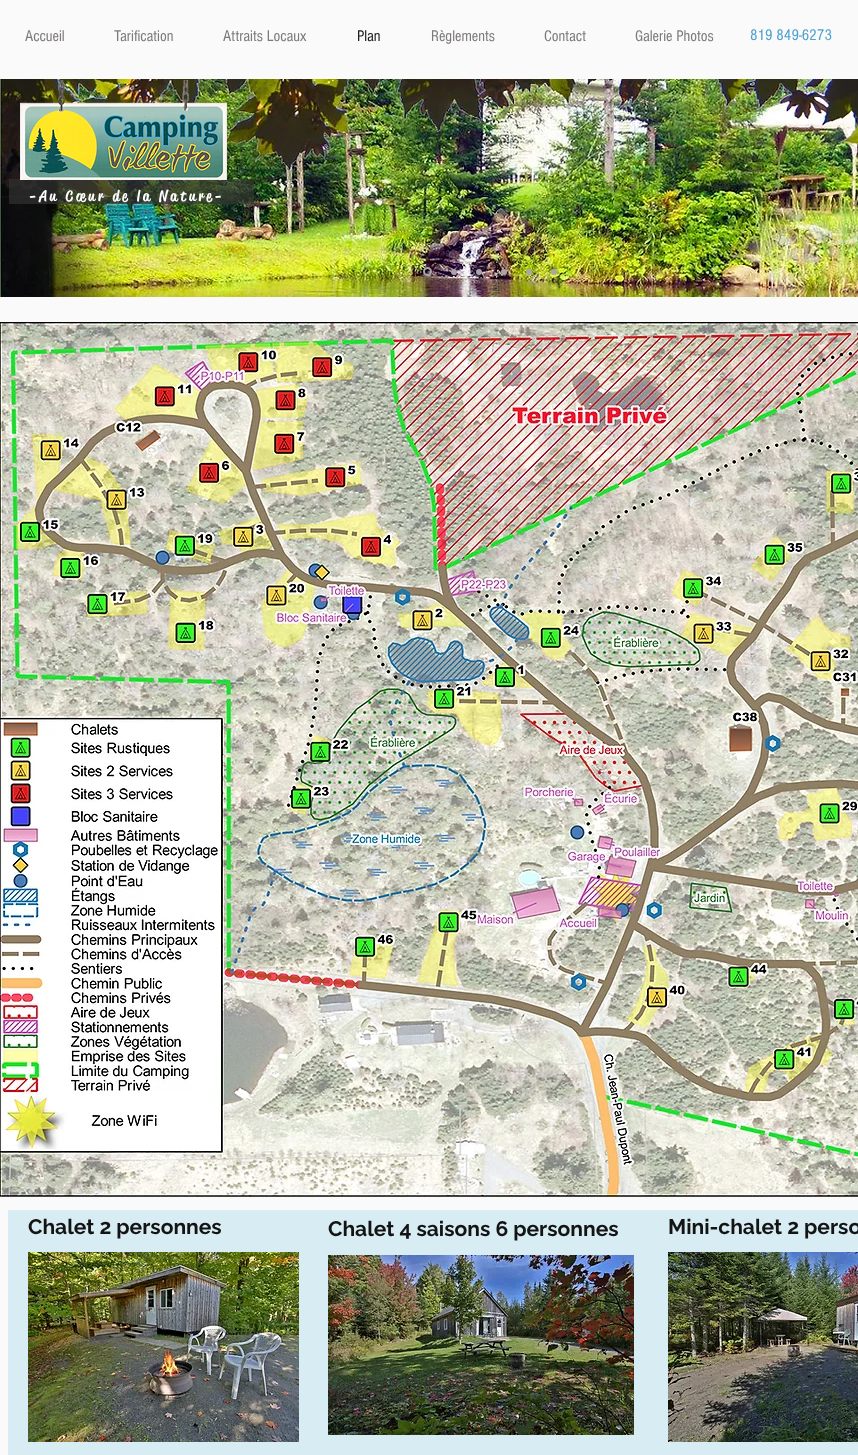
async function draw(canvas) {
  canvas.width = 858;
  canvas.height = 1455;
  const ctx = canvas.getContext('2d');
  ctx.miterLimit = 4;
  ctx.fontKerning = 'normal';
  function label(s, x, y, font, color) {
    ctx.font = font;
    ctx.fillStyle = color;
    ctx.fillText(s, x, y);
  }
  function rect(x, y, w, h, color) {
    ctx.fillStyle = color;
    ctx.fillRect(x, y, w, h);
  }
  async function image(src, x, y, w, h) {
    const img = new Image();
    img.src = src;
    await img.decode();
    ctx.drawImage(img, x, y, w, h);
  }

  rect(0, 0, 858, 1455, '#fafafa');
  label('Accueil', 25, 41, '16px "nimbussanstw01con"', '#7d7979');
  label('Tarification', 114, 41, '16px "nimbussanstw01con"', '#7d7979');
  label('Attraits Locaux', 223, 41, '16px "nimbussanstw01con"', '#7d7979');
  label('Plan', 357, 41, '16px "nimbussanstw01con"', '#141414');
  label('Règlements', 431, 41, '16px "nimbussanstw01con"', '#7d7979');
  label('Contact', 544, 41, '16px "nimbussanstw01con"', '#7d7979');
  label('Galerie Photos', 635, 41, '16px "nimbussanstw01con"', '#7d7979');
  label('819 849-6273', 750, 40, '16px "nimbussanstw01con"', '#4ba0cc');
  await image('assets/img1.png', 0, 79, 858, 218);
  rect(9, 179, 245, 25, '#323232b0');
  ctx.beginPath();
  ctx.arc(427.5, 271.5, 3.5, 0, 2 * Math.PI);
  ctx.strokeStyle = '#a8a6a6';
  ctx.lineWidth = 2;
  ctx.stroke();
  ctx.fillStyle = '#a8a6a6';
  ctx.beginPath();
  ctx.arc(454, 272, 3, 0, 2 * Math.PI);
  ctx.fill();
  ctx.beginPath();
  ctx.arc(479, 272, 3, 0, 2 * Math.PI);
  ctx.fill();
  ctx.beginPath();
  ctx.arc(504, 272, 3, 0, 2 * Math.PI);
  ctx.fill();
  ctx.beginPath();
  ctx.arc(529, 272, 3, 0, 2 * Math.PI);
  ctx.fill();
  ctx.beginPath();
  ctx.arc(554, 272, 3, 0, 2 * Math.PI);
  ctx.fill();
  await image('assets/img2.png', 20, 80, 207, 100);
  ctx.letterSpacing = '3px';
  label('-Au Cœur de la Nature-', 29, 201, '500 15px "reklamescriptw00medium"', '#fff');
  await image('assets/img3.png', 0, 322, 858, 875);
  rect(8, 1210, 850, 245, '#d8ecf3');
  ctx.letterSpacing = '0px';
  label('Chalet 2 personnes', 28, 1234, 'bold 21px Raleway', '#141414');
  label('Chalet 4 saisons 6 personnes', 328, 1236, 'bold 21px Raleway', '#141414');
  label('Mini-chalet 2 perso', 668, 1234, 'bold 21px Raleway', '#141414');
  await image('assets/img4.png', 28, 1252, 271, 190);
  await image('assets/img5.png', 328, 1255, 306, 180);
  await image('assets/img6.png', 668, 1252, 190, 190);
}

draw(document.querySelector('canvas'));
